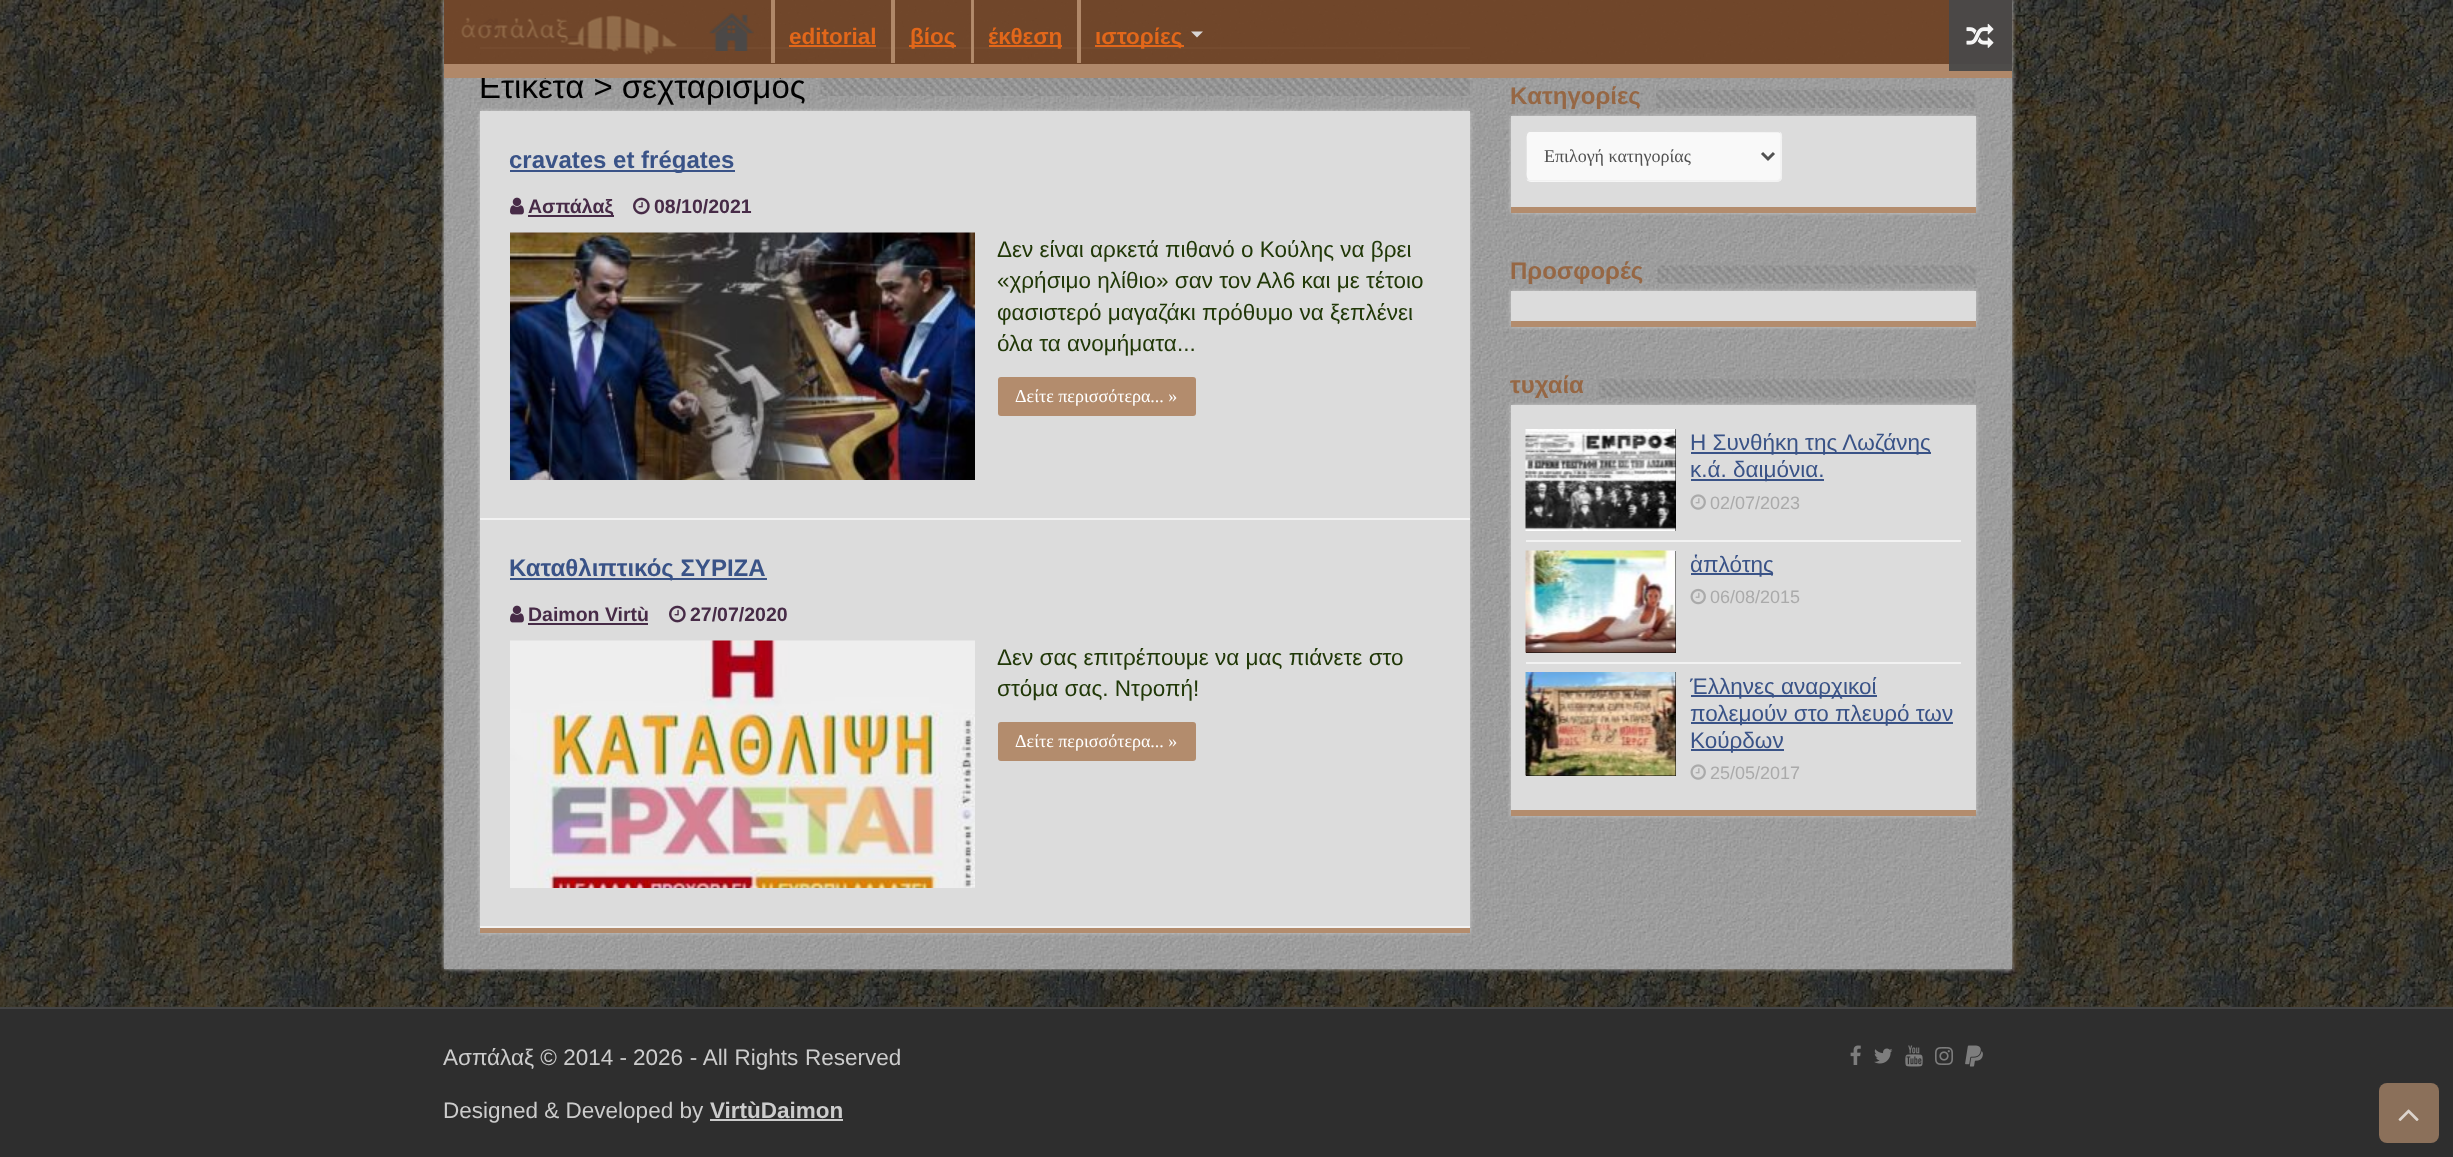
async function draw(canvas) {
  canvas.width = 2453;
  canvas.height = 1157;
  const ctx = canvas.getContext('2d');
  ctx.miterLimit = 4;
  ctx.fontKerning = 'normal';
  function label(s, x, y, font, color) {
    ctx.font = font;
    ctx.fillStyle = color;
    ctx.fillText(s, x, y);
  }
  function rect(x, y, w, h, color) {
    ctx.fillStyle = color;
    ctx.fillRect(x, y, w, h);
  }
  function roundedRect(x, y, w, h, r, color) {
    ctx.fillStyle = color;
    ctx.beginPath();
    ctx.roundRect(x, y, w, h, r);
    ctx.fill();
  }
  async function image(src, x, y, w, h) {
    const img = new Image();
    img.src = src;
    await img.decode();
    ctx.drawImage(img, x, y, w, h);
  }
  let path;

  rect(0, 0, 2453, 1157, '#fff');
  await image('assets/img1.png', 0, 0, 2453, 1007);
  ctx.fillStyle = '#cacaca';
  ctx.filter = 'blur(2px)';
  ctx.beginPath();
  ctx.rect(444, -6, 1568, 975);
  ctx.fill();
  ctx.filter = 'none';
  rect(2011, 0, 1, 969, '#a2a2a2');
  await image('assets/img5.png', 444, 0, 1568, 969);
  rect(480, 47, 990, 2, '#eee');
  await image('assets/img6.png', 480, 18, 21, 17);
  rect(500, 36, 145, 2, '#3a5387');
  ctx.fillStyle = '#cacaca';
  ctx.filter = 'blur(2px)';
  ctx.beginPath();
  ctx.rect(480, 111, 990, 822);
  ctx.fill();
  ctx.filter = 'none';
  label('Ετικέτα > σεχταρισμός', 479, 98, '33px Liberation Sans', '#000');
  rect(444, 0, 1568, 78, '#6e4124f2');
  ctx.save();
  ctx.beginPath();
  ctx.rect(444, 0, 1568, 71);
  ctx.clip();
  ctx.fillStyle = '#b0886a';
  path = new Path2D('M296-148H2160V219H296ZM442-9H2010C2011-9 2012-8 2012-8V63C2012 64 2011 64 2010 64H442C442 64 441 64 441 63V-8C441-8 442-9 442-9Z');
  ctx.fill(path, 'evenodd');
  ctx.restore();
  rect(444, 71, 1568, 7, '#b38c6df2');
  await image('assets/img2.png', 461, 15, 216, 40);
  await image('assets/img3.png', 709, 13, 45, 38);
  rect(771, 0, 2, 63, '#b38c6df2');
  rect(773, 0, 2, 63, '#b38c6df2');
  label('editorial', 789, 44, 'bold 22.5px Liberation Sans', '#e2671a');
  rect(789, 45, 87, 2, '#e2671a');
  rect(891, 0, 2, 63, '#b38c6df2');
  rect(893, 0, 2, 63, '#b38c6df2');
  rect(909, 45, 47, 2, '#e2671a');
  label('βίος', 910, 44, 'bold 22.5px Liberation Sans', '#e2671a');
  rect(971, 0, 2, 63, '#b38c6df2');
  rect(972, 0, 2, 63, '#b38c6df2');
  rect(989, 45, 73, 2, '#e2671a');
  label('έκθεση', 988, 44, 'bold 22.5px Liberation Sans', '#e2671a');
  rect(1077, 0, 2, 63, '#b38c6df2');
  rect(1079, 0, 2, 63, '#b38c6df2');
  rect(1095, 45, 89, 2, '#e2671a');
  label('ιστορίες', 1095, 44, 'bold 22.5px Liberation Sans', '#e2671a');
  ctx.fillStyle = '#d8d5d4';
  path = new Path2D('M1191 31.5H1203L1197 37.5Z');
  ctx.fill(path);
  rect(1949, 0, 63, 71, '#494949f2');
  await image('assets/img4.png', 1966, 23, 28, 25);
  await image('assets/img7.png', 820, 78, 650, 18);
  rect(480, 111, 990, 815, '#dcdcdc');
  rect(480, 928, 990, 5, '#b38c6d');
  rect(480, 518, 990, 2, '#f2f2f2');
  rect(510, 170, 225, 2, '#3a5387');
  label('cravates et frégates', 509, 168, 'bold 24px Liberation Sans', '#3a5387');
  await image('assets/img8.png', 510, 197, 14, 18);
  rect(528, 215, 86, 2, '#472b47');
  label('Ασπάλαξ', 528, 213, 'bold 19.5px Liberation Sans', '#472b47');
  await image('assets/img9.png', 633, 197, 17, 18);
  label('08/10/2021', 654, 213, 'bold 19.5px Liberation Sans', '#472b47');
  await image('assets/img10.png', 510, 232, 465, 248);
  label('Δεν είναι αρκετά πιθανό ο Κούλης να βρει', 997, 257, '22.5px Liberation Sans', '#213808');
  label('«χρήσιμο ηλίθιο» σαν τον Αλ6 και με τέτοιο', 997, 288, '22.5px Liberation Sans', '#213808');
  label('φασιστερό μαγαζάκι πρόθυμο να ξεπλένει', 997, 320, '22.5px Liberation Sans', '#213808');
  label('όλα τα ανομήματα...', 997, 351, '22.5px Liberation Sans', '#213808');
  roundedRect(998, 377, 198, 39, 3, '#b38c6d');
  label('Δείτε περισσότερα... »', 1015, 402, '18px Liberation Serif', '#fff');
  rect(480, 926, 990, 2, '#f2f2f2');
  rect(510, 578, 257, 2, '#3a5387');
  label('Καταθλιπτικός ΣΥΡΙΖΑ', 509, 576, 'bold 24px Liberation Sans', '#3a5387');
  await image('assets/img8.png', 510, 605, 14, 18);
  label('Daimon Virtù', 528, 621, 'bold 19.5px Liberation Sans', '#472b47');
  rect(528, 623, 120, 2, '#472b47');
  await image('assets/img9.png', 669, 605, 17, 18);
  label('27/07/2020', 690, 621, 'bold 19.5px Liberation Sans', '#472b47');
  await image('assets/img11.png', 510, 640, 465, 248);
  label('Δεν σας επιτρέπουμε να μας πιάνετε στο', 997, 665, '22.5px Liberation Sans', '#213808');
  label('στόμα σας. Ντροπή!', 997, 696, '22.5px Liberation Sans', '#213808');
  roundedRect(998, 722, 198, 39, 3, '#b38c6d');
  label('Δείτε περισσότερα... »', 1015, 747, '18px Liberation Serif', '#fff');
  label('Kατηγορίες', 1510, 104, 'bold 24px Liberation Sans', '#966744');
  await image('assets/img12.png', 1656, 90, 320, 18);
  ctx.fillStyle = '#cacaca';
  ctx.filter = 'blur(2px)';
  ctx.beginPath();
  ctx.rect(1511, 116, 465, 97);
  ctx.fill();
  ctx.filter = 'none';
  rect(1511, 116, 465, 91, '#dcdcdc');
  rect(1511, 207, 465, 6, '#b38c6d');
  roundedRect(1526, 131, 256, 51, 5, '#f9f9f9');
  path = new Path2D('M1780 132.5C1782.5 134.5 1781 140.5 1781 142V170C1781 172.5 1783 180.5 1777.5 181L1529 180.5L1527.5 179.5');
  ctx.strokeStyle = '#f1f1f1';
  ctx.lineWidth = 1.5;
  ctx.stroke(path);
  path = new Path2D('M1527.5 179.5C1525 177.5 1526 171.5 1526 170V142C1526 139.5 1524.5 131.5 1530 131L1778.5 131.5L1780 132.5');
  ctx.strokeStyle = '#ddd';
  ctx.stroke(path);
  path = new Path2D('M1762 153L1768 159L1774 153');
  ctx.strokeStyle = '#515151';
  ctx.lineWidth = 3;
  ctx.stroke(path);
  label('Επιλογή κατηγορίας', 1544, 162, '18px Liberation Serif', '#515151');
  label('Προσφορές', 1510, 279, 'bold 24px Liberation Sans', '#966744');
  await image('assets/img13.png', 1657, 265, 319, 19);
  ctx.fillStyle = '#cacaca';
  ctx.filter = 'blur(2px)';
  ctx.beginPath();
  ctx.rect(1511, 291, 465, 36);
  ctx.fill();
  ctx.filter = 'none';
  rect(1511, 291, 465, 30, '#dcdcdc');
  rect(1511, 321, 465, 6, '#b38c6d');
  label('τυχαία', 1510, 393, 'bold 24px Liberation Sans', '#966744');
  await image('assets/img14.png', 1599, 379, 377, 19);
  ctx.fillStyle = '#cacaca';
  ctx.filter = 'blur(2px)';
  ctx.beginPath();
  ctx.rect(1511, 405, 465, 411);
  ctx.fill();
  ctx.filter = 'none';
  rect(1511, 405, 465, 405, '#dcdcdc');
  rect(1511, 810, 465, 6, '#b38c6d');
  rect(1526, 540, 435, 2, '#f2f2f2');
  rect(1675, 429, 1, 102, '#000');
  await image('assets/img15.png', 1525, 429, 151, 102);
  rect(1691, 452, 240, 2, '#3a5387');
  label('Η Συνθήκη της Λωζάνης', 1690, 450, '22.5px Liberation Sans', '#3a5387');
  rect(1691, 479, 133, 2, '#3a5387');
  label('κ.ά. δαιμόνια.', 1690, 477, '22.5px Liberation Sans', '#3a5387');
  await image('assets/img16.png', 1690, 494, 16, 16);
  label('02/07/2023', 1710, 509, '18px Liberation Sans', '#aaa');
  rect(1526, 662, 435, 2, '#f2f2f2');
  rect(1526, 551, 150, 102, '#000');
  await image('assets/img17.png', 1525, 550, 151, 103);
  rect(1691, 573, 82, 2, '#3a5387');
  label('ἁπλότης', 1690, 572, '22.5px Liberation Sans', '#3a5387');
  await image('assets/img18.png', 1690, 588, 16, 17);
  label('06/08/2015', 1710, 603, '18px Liberation Sans', '#aaa');
  rect(1526, 672, 150, 104, '#000');
  await image('assets/img19.png', 1525, 672, 151, 104);
  rect(1691, 695, 186, 2, '#3a5387');
  label('Έλληνες αναρχικοί', 1690, 694, '22.5px Liberation Sans', '#3a5387');
  rect(1691, 722, 262, 2, '#3a5387');
  label('πολεμούν στο πλευρό των', 1690, 721, '22.5px Liberation Sans', '#3a5387');
  rect(1691, 749, 93, 2, '#3a5387');
  label('Κούρδων', 1690, 748, '22.5px Liberation Sans', '#3a5387');
  await image('assets/img16.png', 1690, 764, 16, 16);
  label('25/05/2017', 1710, 779, '18px Liberation Sans', '#aaa');
  rect(0, 1009, 2453, 148, '#2e2e2e');
  rect(0, 1007, 2453, 2, '#444');
  label('Ασπάλαξ © 2014 -', 443, 1065, '22.5px Liberation Sans', '#ccc');
  ctx.wordSpacing = '0.5px';
  label('2026 - All Rights Reserved', 633, 1065, '22.5px Liberation Sans', '#ccc');
  ctx.wordSpacing = '0px';
  label('Designed & Developed by', 443, 1118, '22.5px Liberation Sans', '#ccc');
  label('VirtùDaimon', 710, 1118, 'bold 22.5px Liberation Sans', '#ccc');
  rect(710, 1119, 133, 2, '#ccc');
  await image('assets/img20.png', 1850, 1045, 11, 20);
  await image('assets/img21.png', 1874, 1048, 19, 16);
  await image('assets/img22.png', 1905, 1045, 18, 22);
  await image('assets/img23.png', 1935, 1047, 18, 18);
  await image('assets/img24.png', 1965, 1045, 18, 22);
  roundedRect(2379, 1083, 60, 60, 8, '#8b705a');
  await image('assets/img25.png', 2398, 1109, 21, 12);
}

draw(document.querySelector('canvas'));
